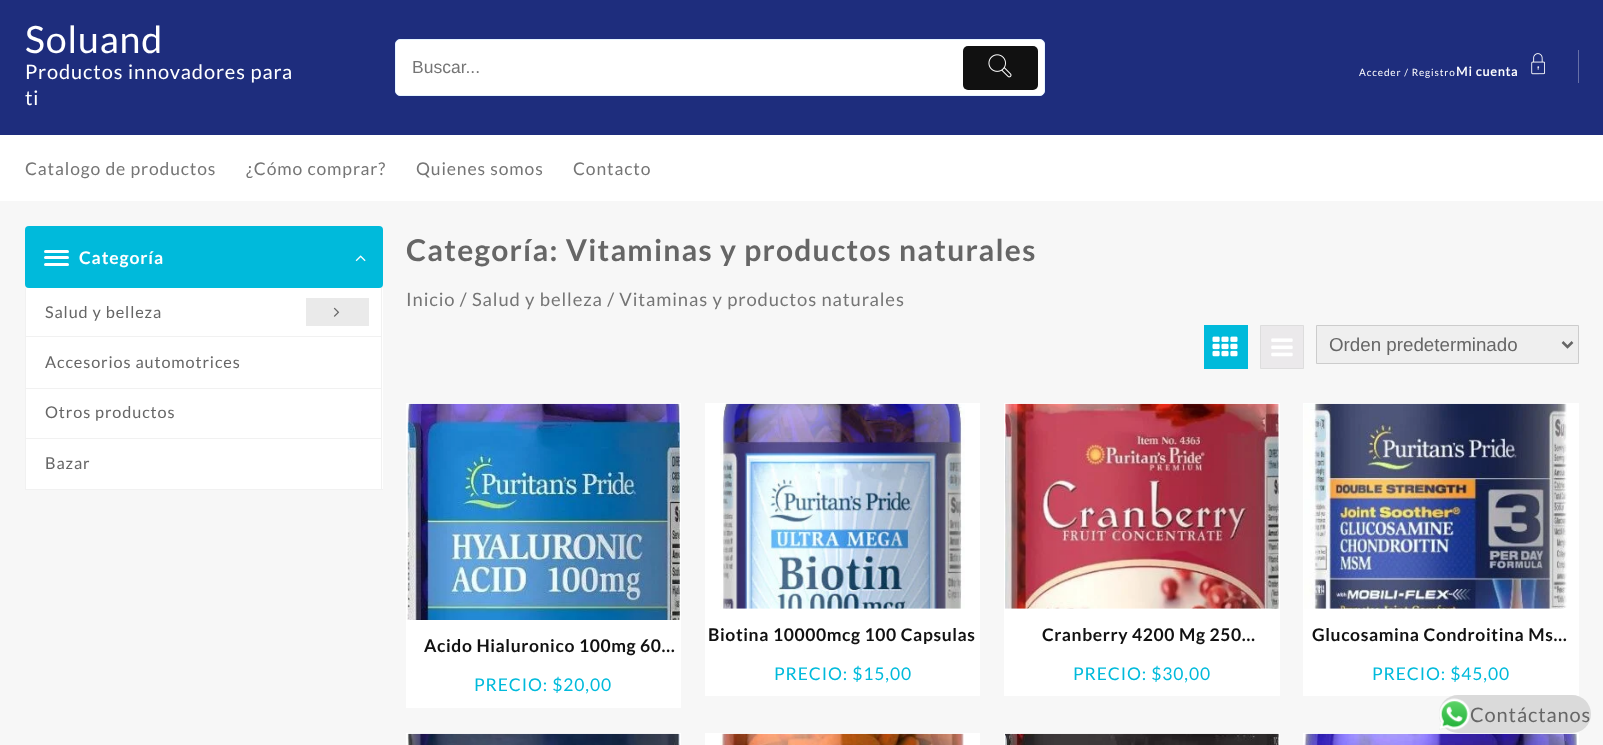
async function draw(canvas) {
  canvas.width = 1603;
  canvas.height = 745;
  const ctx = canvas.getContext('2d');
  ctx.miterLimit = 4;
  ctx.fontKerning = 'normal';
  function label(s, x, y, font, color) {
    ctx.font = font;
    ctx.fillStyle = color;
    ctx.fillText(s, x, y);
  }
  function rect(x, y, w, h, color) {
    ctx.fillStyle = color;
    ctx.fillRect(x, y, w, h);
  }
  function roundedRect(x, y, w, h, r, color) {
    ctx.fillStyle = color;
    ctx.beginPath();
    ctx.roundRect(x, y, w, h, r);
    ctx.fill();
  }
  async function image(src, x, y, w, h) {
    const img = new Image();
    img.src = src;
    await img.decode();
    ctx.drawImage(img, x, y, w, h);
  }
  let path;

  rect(0, 0, 1603, 745, '#f7f7f7');
  rect(0, 0, 1603, 135, '#1e2d7d');
  ctx.letterSpacing = '0.88px';
  label('Soluand', 25, 53, '37.5px Lato', '#fff');
  label('Productos innovadores para', 25, 79, '20px Lato', '#fff');
  label('ti', 25, 105, '20px Lato', '#fff');
  ctx.beginPath();
  ctx.roundRect(395.5, 39.5, 649, 56, 4.5);
  ctx.fill();
  ctx.strokeStyle = '#e7f5ff';
  ctx.stroke();
  ctx.letterSpacing = '0px';
  label('Buscar...', 412, 73, '17.5px Liberation Sans', '#757575');
  roundedRect(963, 46, 75, 44, 5, '#111');
  await image('assets/img1.png', 988, 54, 24, 24);
  ctx.letterSpacing = '0.88px';
  label('Acceder / Registro', 1359, 76, '10px Lato', '#fff');
  label('Mi cuenta', 1456, 76, 'bold 12.5px Lato', '#fff');
  await image('assets/img2.png', 1531, 53, 15, 22);
  rect(1578, 50, 1, 33, '#6670a7');
  rect(0, 135, 1603, 66, '#fff');
  label('Catalogo de productos', 25, 175, '17.5px Lato', '#757575');
  label('¿Cómo comprar?', 246, 175, '17.5px Lato', '#757575');
  label('Quienes somos', 416, 175, '17.5px Lato', '#757575');
  label('Contacto', 573, 175, '17.5px Lato', '#757575');
  roundedRect(25, 226, 358, 62, 4, '#00badb');
  roundedRect(44, 250, 25, 3, 1.5, '#fff');
  roundedRect(44, 256, 25, 3, 1.5, '#fff');
  roundedRect(44, 263, 25, 3, 1.5, '#fff');
  label('Categoría', 79, 264, 'bold 17.5px "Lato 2"', '#fff');
  await image('assets/img3.png', 355, 255, 11, 7);
  rect(26, 288, 357, 201, '#fff');
  rect(381, 288, 1, 202, '#f1f1f1');
  rect(25, 489, 358, 1, '#f1f1f1');
  rect(25, 288, 1, 202, '#f1f1f1');
  rect(26, 336, 355, 1, '#f1f1f1');
  label('Salud y belleza', 45, 318, '16.25px Lato', '#666');
  rect(306, 298, 63, 28, '#eaeaea');
  await image('assets/img4.png', 333, 307, 7, 10);
  rect(26, 388, 355, 1, '#f1f1f1');
  label('Accesorios automotrices', 45, 368, '16.25px Lato', '#666');
  rect(26, 438, 355, 1, '#f1f1f1');
  label('Otros productos', 45, 418, '16.25px Lato', '#666');
  label('Bazar', 45, 469, '16.25px Lato', '#666');
  ctx.letterSpacing = '1.25px';
  label('Categoría: Vitaminas y productos naturales', 406, 261, 'bold 30px "Lato 2"', '#666');
  ctx.letterSpacing = '0.88px';
  label('Inicio / Salud y belleza / Vitaminas y productos naturales', 406, 306, '18.4px Lato', '#757575');
  rect(1204, 325, 44, 44, '#00badb');
  await image('assets/img5.png', 1212, 336, 26, 21);
  ctx.fillStyle = '#ebe9eb';
  ctx.beginPath();
  ctx.rect(1260.5, 325.5, 43, 43);
  ctx.fill();
  ctx.strokeStyle = '#ddd';
  ctx.stroke();
  await image('assets/img6.png', 1271, 338, 22, 19);
  ctx.fillStyle = '#efefef';
  ctx.beginPath();
  ctx.rect(1316.5, 325.5, 262, 38);
  ctx.fill();
  ctx.strokeStyle = '#ccc';
  ctx.stroke();
  path = new Path2D('M1562.5 342L1567.5 347L1572.5 342');
  ctx.strokeStyle = '#666';
  ctx.lineWidth = 2.5;
  ctx.stroke(path);
  ctx.letterSpacing = '0px';
  label('Orden predeterminado', 1329, 351, '18.75px Liberation Sans', '#666');
  rect(406, 403, 275, 305, '#fff');
  await image('assets/img7.png', 407, 403, 273, 217);
  ctx.letterSpacing = '0.6px';
  label('Acido Hialuronico 100mg 60…', 424, 652, 'bold 17.5px "Lato 2"', '#111');
  ctx.letterSpacing = '0.88px';
  label('PRECIO: $20,00', 474, 691, '17.5px Lato', '#00badb');
  rect(705, 403, 275, 293, '#fff');
  await image('assets/img8.png', 720, 403, 245, 206);
  ctx.letterSpacing = '0.6px';
  label('Biotina 10000mcg 100 Capsulas', 708, 641, 'bold 17.5px "Lato 2"', '#111');
  ctx.letterSpacing = '0.88px';
  label('PRECIO: $15,00', 774, 680, '17.5px Lato', '#00badb');
  rect(1004, 403, 276, 293, '#fff');
  await image('assets/img9.png', 1005, 403, 274, 206);
  ctx.letterSpacing = '0.6px';
  label('Cranberry 4200 Mg 250…', 1042, 641, 'bold 17.5px "Lato 2"', '#111');
  ctx.letterSpacing = '0.88px';
  label('PRECIO: $30,00', 1073, 680, '17.5px Lato', '#00badb');
  rect(1303, 403, 276, 293, '#fff');
  await image('assets/img10.png', 1304, 403, 263, 206);
  ctx.letterSpacing = '0.6px';
  label('Glucosamina Condroitina Ms…', 1312, 641, 'bold 17.5px "Lato 2"', '#111');
  ctx.letterSpacing = '0.88px';
  label('PRECIO: $45,00', 1372, 680, '17.5px Lato', '#00badb');
  rect(406, 733, 275, 12, '#fff');
  await image('assets/img11.png', 407, 733, 273, 12);
  rect(705, 733, 275, 12, '#fff');
  await image('assets/img12.png', 720, 733, 244, 12);
  rect(1004, 733, 276, 12, '#fff');
  await image('assets/img13.png', 1005, 733, 274, 12);
  rect(1303, 733, 276, 12, '#fff');
  await image('assets/img14.png', 1304, 733, 273, 12);
  roundedRect(1439, 695, 152, 38, 19, '#dadada');
  await image('assets/img15.png', 1439, 698, 31, 32);
  label('Contáctanos', 1470, 722, '20px Lato', '#666');
}

draw(document.querySelector('canvas'));
